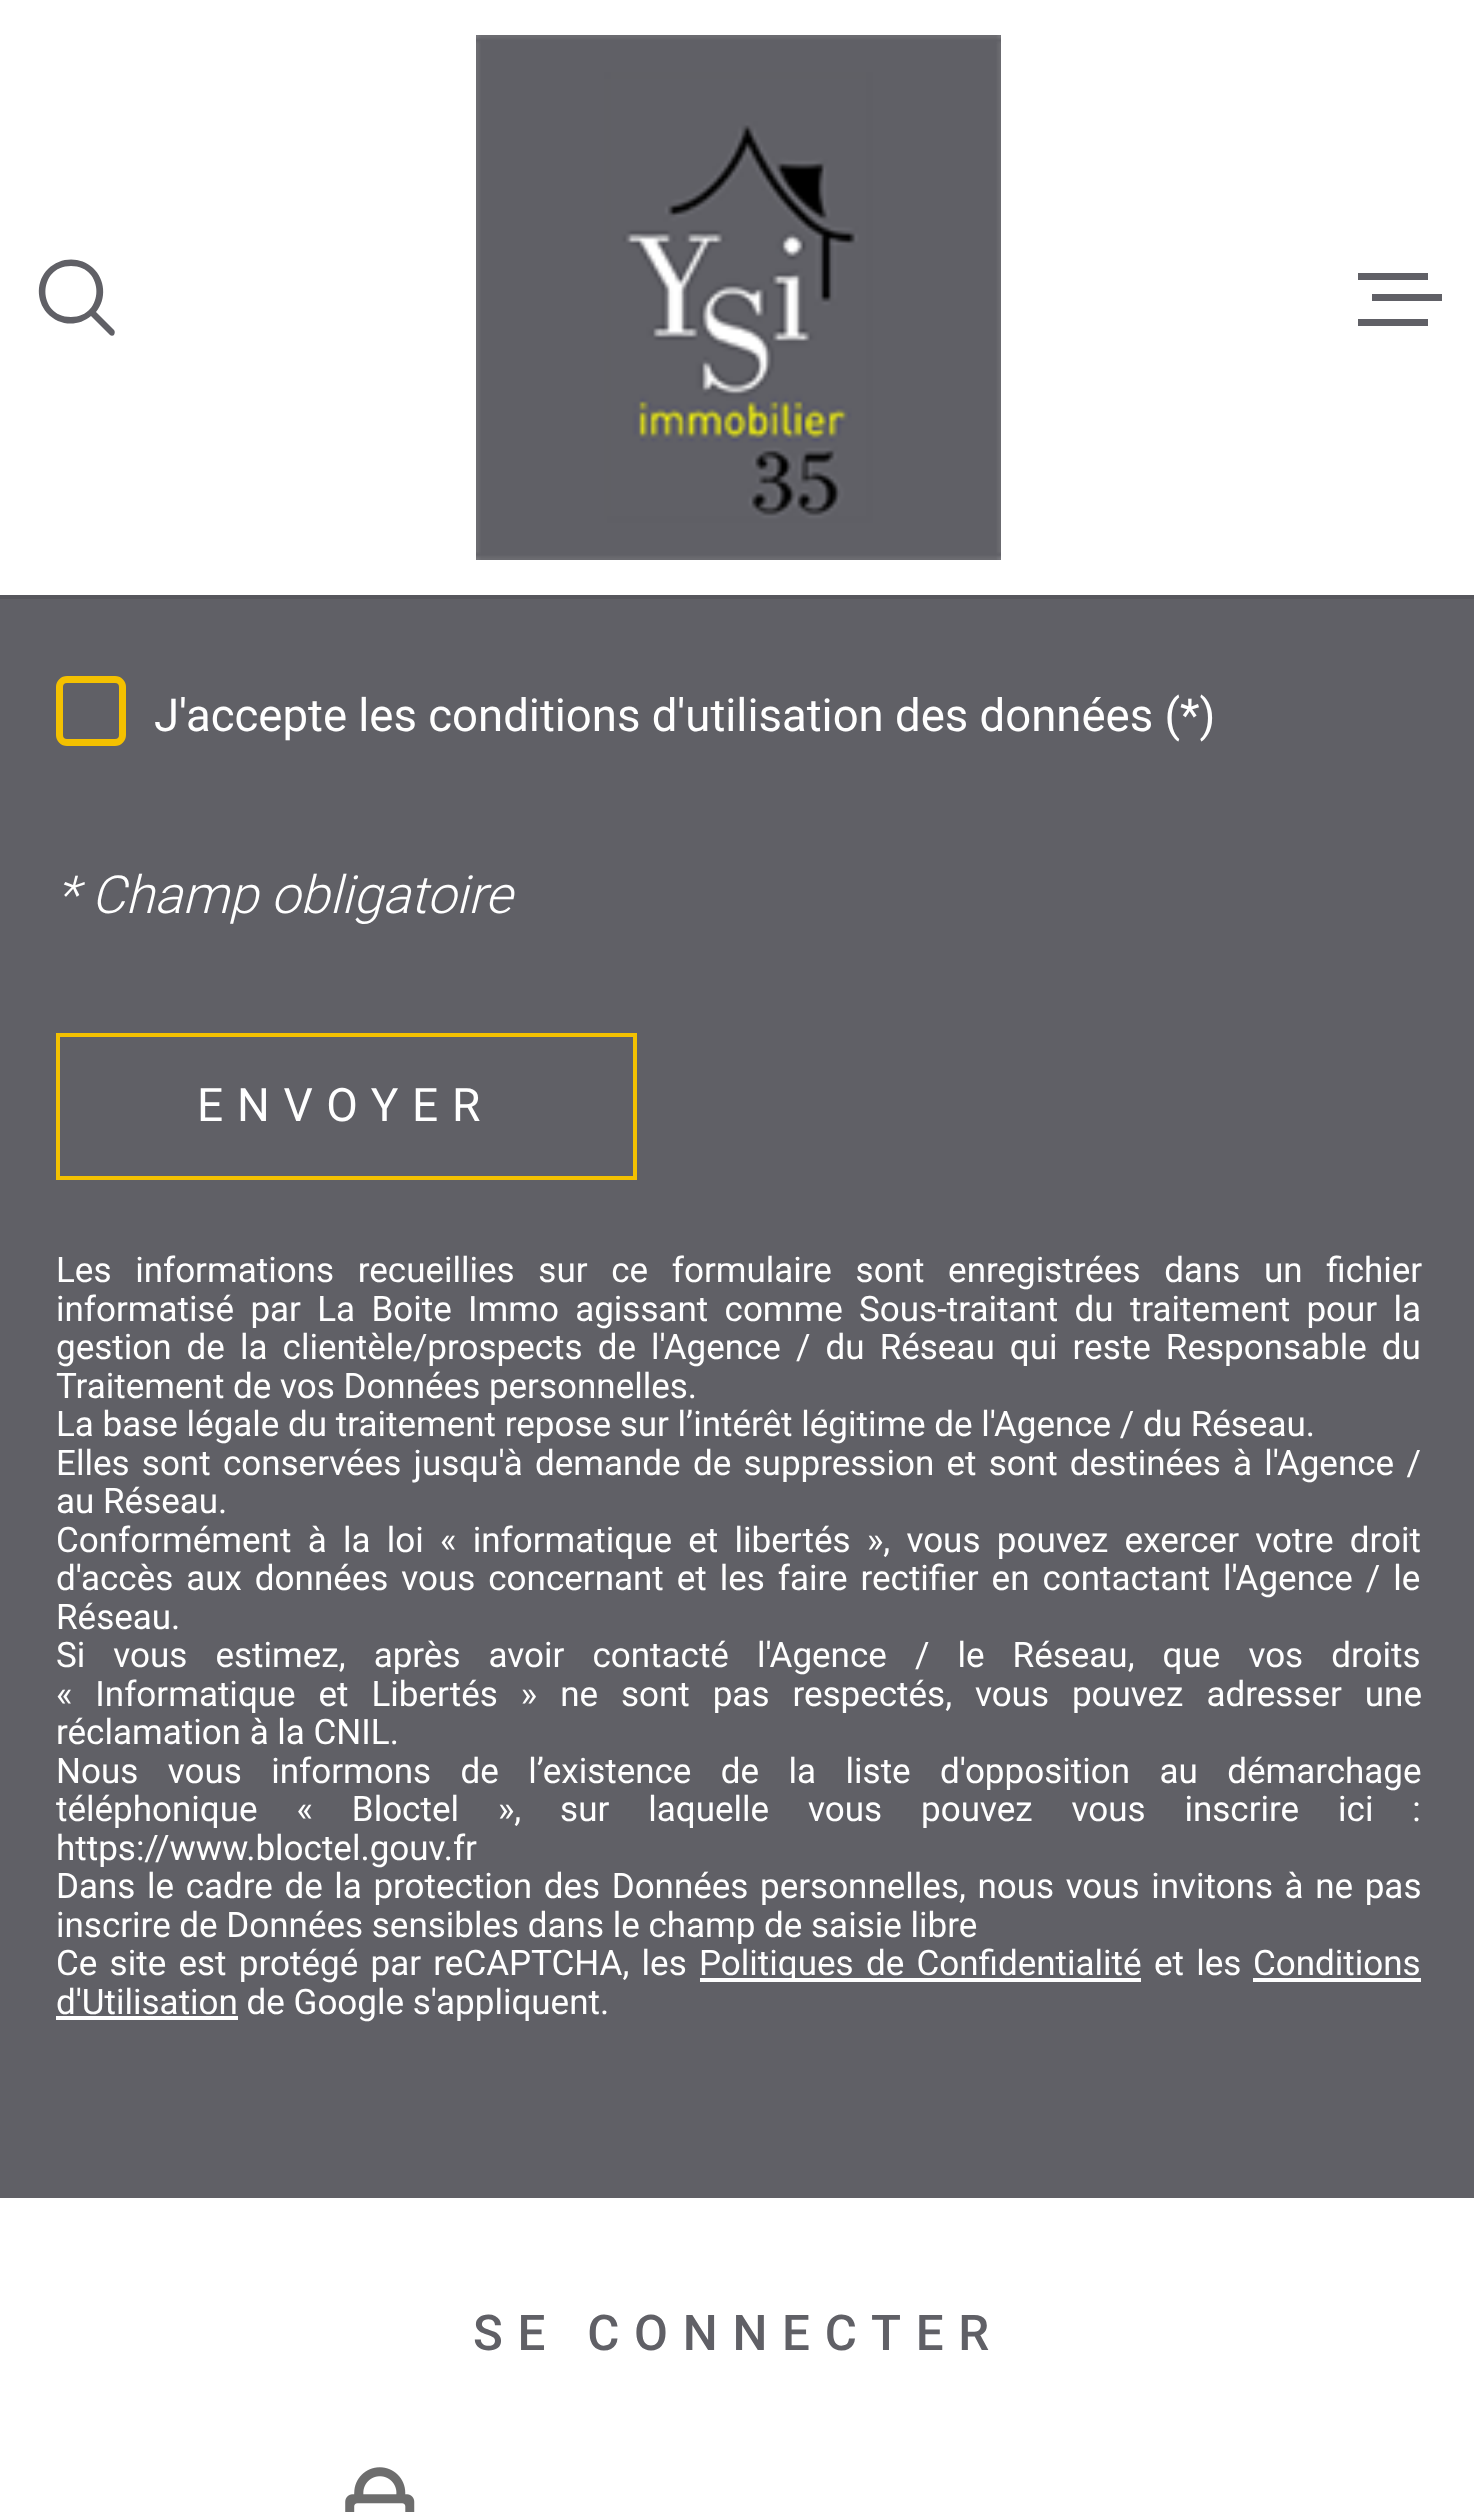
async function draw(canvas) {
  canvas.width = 1474;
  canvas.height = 2512;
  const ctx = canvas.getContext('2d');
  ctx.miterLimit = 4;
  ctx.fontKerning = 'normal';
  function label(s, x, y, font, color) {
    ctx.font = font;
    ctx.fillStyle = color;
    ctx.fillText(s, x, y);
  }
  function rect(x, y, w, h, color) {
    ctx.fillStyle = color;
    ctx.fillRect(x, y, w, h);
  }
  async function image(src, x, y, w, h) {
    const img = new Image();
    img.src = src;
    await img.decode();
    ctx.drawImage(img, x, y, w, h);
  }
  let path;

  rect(0, 0, 1474, 2512, '#fff');
  ctx.fillStyle = '#606066';
  path = new Path2D('M114 330L96 312C107 299 105 279 93 268C80 256 60 257 48 269C36 281 36 300 47 313C59 326 78 327 91 316L110 335C111 336 113 336 114 335C115 333 115 331 114 330ZM71 317C37 317 37 266 71 266C105 266 105 317 71 317Z');
  ctx.fill(path);
  await image('assets/img1.png', 476, 35, 525, 525);
  rect(1372, 294, 70, 7, '#606066');
  rect(1358, 273, 70, 7, '#606066');
  rect(1358, 319, 70, 7, '#606066');
  rect(0, 595, 1474, 4, '#56565c');
  rect(0, 599, 1474, 1599, '#606066');
  ctx.beginPath();
  ctx.roundRect(59.5, 679.5, 63, 63, 7.5);
  ctx.strokeStyle = '#f4c100';
  ctx.lineWidth = 7;
  ctx.stroke();
  label('J\'accepte les conditions d\'utilisation des données (*)', 154, 731, '45.5px Roboto', '#fff');
  label('* Champ obligatoire', 56, 913, 'italic 300 52.5px Roboto', '#fff');
  ctx.lineWidth = 4;
  ctx.strokeRect(58, 1035, 577, 143);
  ctx.letterSpacing = '13.75px';
  label('ENVOYER', 197, 1121, '46px Roboto', '#fff');
  ctx.letterSpacing = '0px';
  ctx.wordSpacing = '15px';
  label('Les informations recueillies sur ce formulaire sont enregistrées dans un fichier', 56, 1282, '35px Roboto', '#fff');
  ctx.wordSpacing = '7.6px';
  label('informatisé par La Boite Immo agissant comme Sous-traitant du traitement pour la', 56, 1321, '35px Roboto', '#fff');
  ctx.wordSpacing = '6.4px';
  label('gestion de la clientèle/prospects de l\'Agence / du Réseau qui reste Responsable du', 56, 1359, '35px Roboto', '#fff');
  ctx.wordSpacing = '0px';
  label('Traitement de vos Données personnelles.', 56, 1398, '35px Roboto', '#fff');
  label('La base légale du traitement repose sur l’intérêt légitime de l\'Agence / du Réseau.', 56, 1436, '35px Roboto', '#fff');
  ctx.wordSpacing = '3.6px';
  label('Elles sont conservées jusqu\'à demande de suppression et sont destinées à l\'Agence /', 56, 1475, '35px Roboto', '#fff');
  ctx.wordSpacing = '0px';
  label('au Réseau.', 56, 1513, '35px Roboto', '#fff');
  ctx.wordSpacing = '7.6px';
  label('Conformément à la loi « informatique et libertés », vous pouvez exercer votre droit', 56, 1552, '35px Roboto', '#fff');
  ctx.wordSpacing = '4.25px';
  label('d\'accès aux données vous concernant et les faire rectifier en contactant l\'Agence / le', 56, 1590, '35px Roboto', '#fff');
  ctx.wordSpacing = '0px';
  label('Réseau.', 56, 1629, '35px Roboto', '#fff');
  ctx.wordSpacing = '19.4px';
  label('Si vous estimez, après avoir contacté l\'Agence / le Réseau, que vos droits', 56, 1667, '35px Roboto', '#fff');
  ctx.wordSpacing = '14.25px';
  label('« Informatique et Libertés » ne sont pas respectés, vous pouvez adresser une', 56, 1706, '35px Roboto', '#fff');
  ctx.wordSpacing = '0px';
  label('réclamation à la CNIL.', 56, 1744, '35px Roboto', '#fff');
  ctx.wordSpacing = '20.75px';
  label('Nous vous informons de l’existence de la liste d\'opposition au démarchage', 56, 1783, '35px Roboto', '#fff');
  ctx.wordSpacing = '30.25px';
  label('téléphonique « Bloctel », sur laquelle vous pouvez vous inscrire ici :', 56, 1821, '35px Roboto', '#fff');
  ctx.wordSpacing = '0px';
  label('https://www.bloctel.gouv.fr', 56, 1860, '35px Roboto', '#fff');
  ctx.wordSpacing = '2.9px';
  label('Dans le cadre de la protection des Données personnelles, nous vous invitons à ne pas', 56, 1898, '35px Roboto', '#fff');
  ctx.wordSpacing = '0px';
  label('inscrire de Données sensibles dans le champ de saisie libre', 56, 1937, '35px Roboto', '#fff');
  ctx.wordSpacing = '3.6px';
  label('Ce site est protégé par reCAPTCHA, les', 56, 1975, '35px Roboto', '#fff');
  rect(700, 1978, 441, 4, '#fff');
  label('Politiques de Confidentialité', 699, 1975, '35px Roboto', '#fff');
  label('et les', 1154, 1975, '35px Roboto', '#fff');
  ctx.wordSpacing = '0px';
  label('Conditions', 1253, 1975, '35px Roboto', '#fff');
  rect(1253, 1978, 168, 4, '#fff');
  rect(56, 2016, 182, 4, '#fff');
  label('d\'Utilisation de Google s\'appliquent.', 56, 2014, '35px Roboto', '#fff');
  ctx.letterSpacing = '14.75px';
  label('SE CONNECTER', 473, 2350, '500 49.25px Roboto', '#606066');
  await image('assets/img2.png', 345, 2467, 70, 45);
}

draw(document.querySelector('canvas'));
